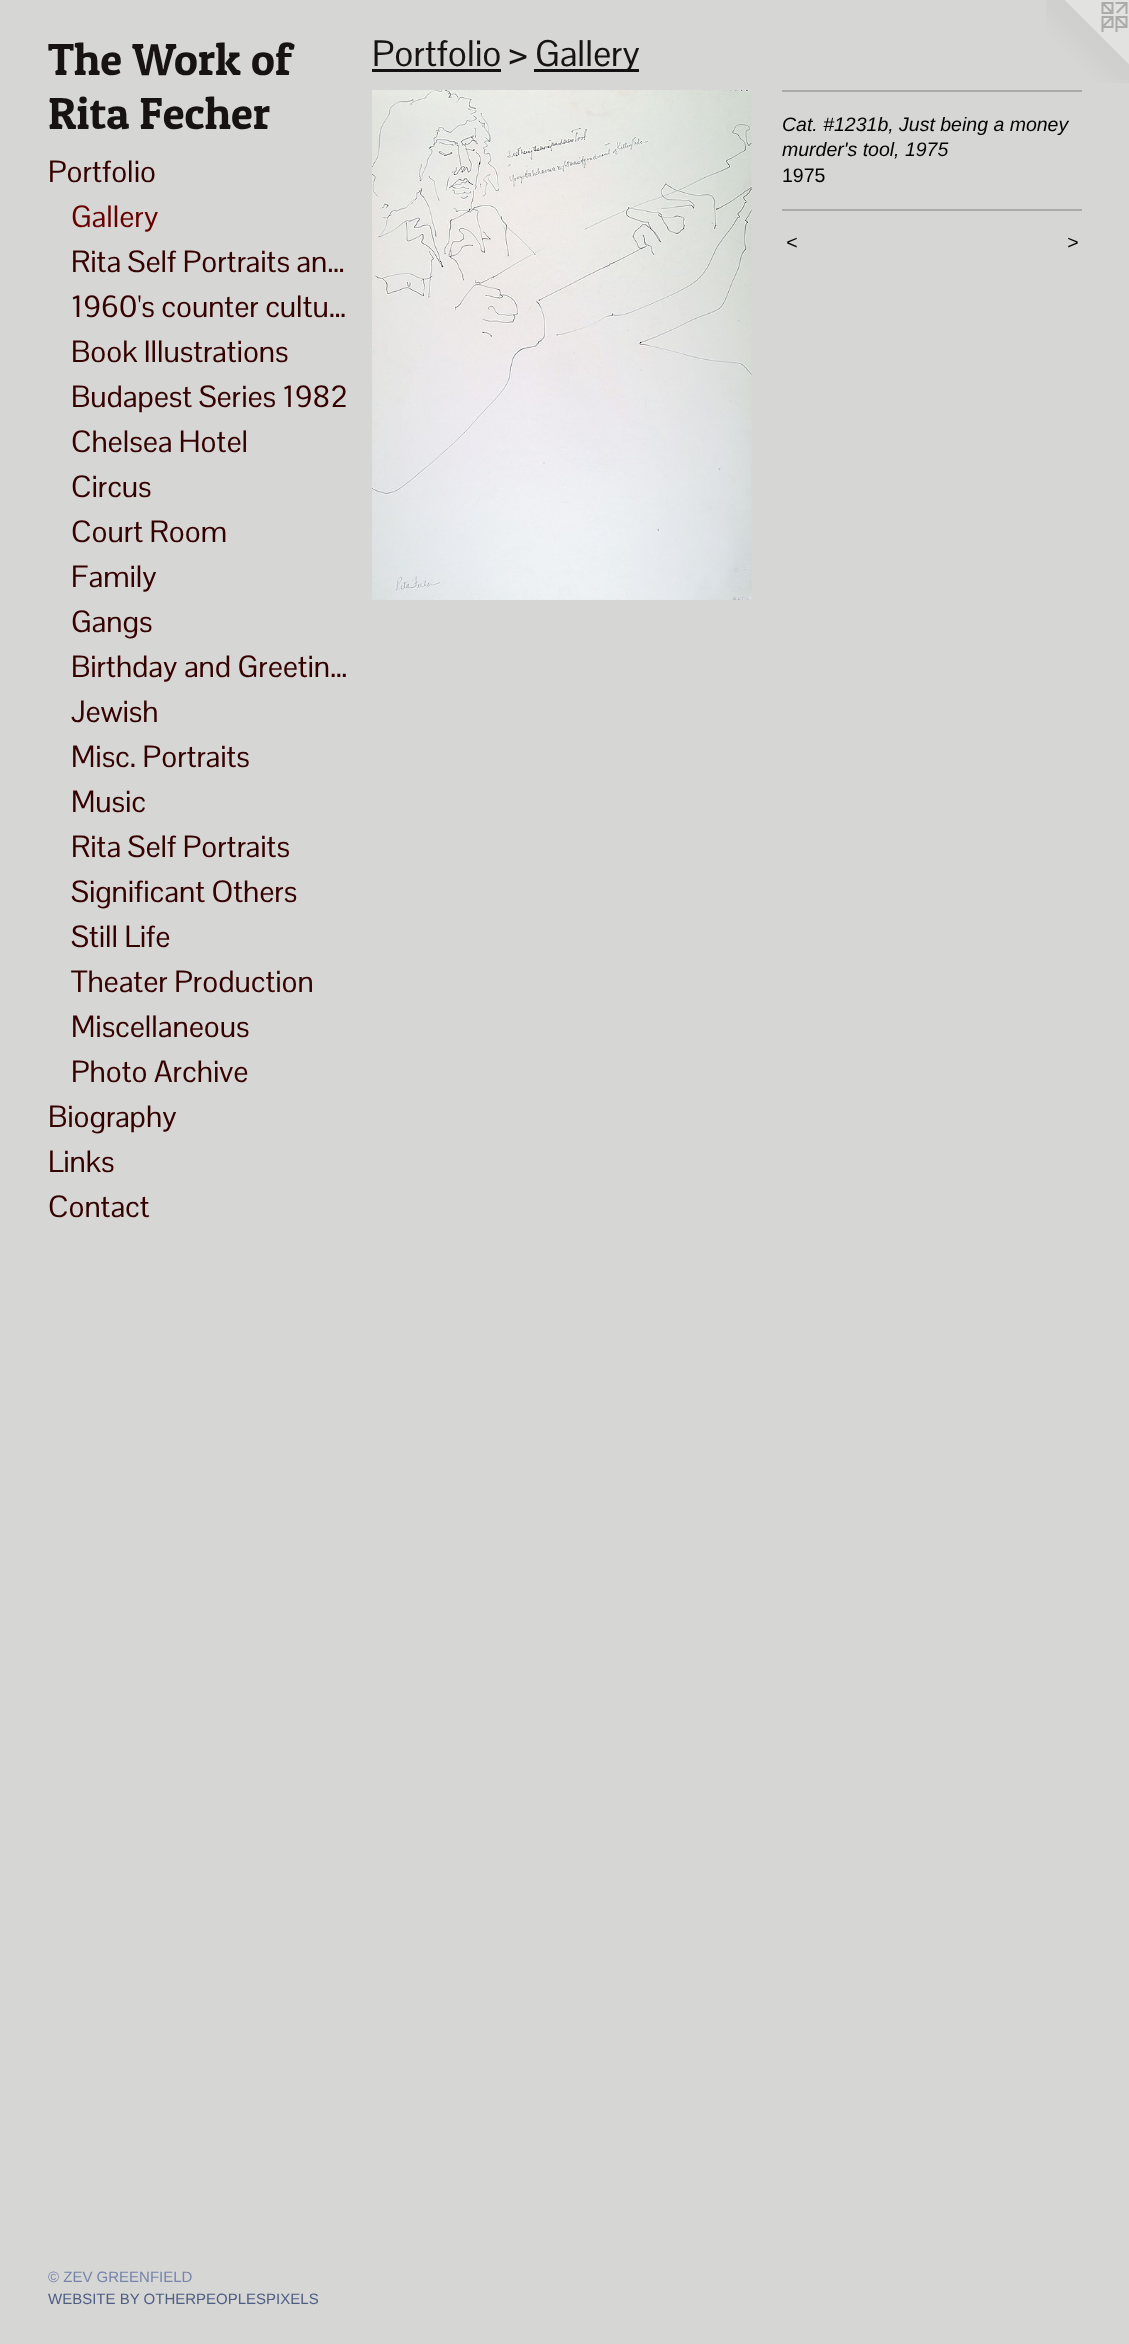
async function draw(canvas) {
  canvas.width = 1129;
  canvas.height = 2344;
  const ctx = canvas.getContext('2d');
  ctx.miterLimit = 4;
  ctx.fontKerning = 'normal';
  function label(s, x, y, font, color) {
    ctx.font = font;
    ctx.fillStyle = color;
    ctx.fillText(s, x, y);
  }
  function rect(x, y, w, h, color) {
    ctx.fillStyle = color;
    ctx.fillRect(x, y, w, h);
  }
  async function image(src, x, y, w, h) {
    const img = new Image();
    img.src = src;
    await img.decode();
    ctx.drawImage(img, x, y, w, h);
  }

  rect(0, 0, 1129, 2344, '#d6d6d5');
  label('The Work of', 48, 75, '45px Patua One', '#171313');
  label('Rita Fecher', 48, 129, '45px Patua One', '#171313');
  label('Portfolio', 48, 182, '30px Pontano Sans', '#350000');
  label('Gallery', 71, 227, '30px Pontano Sans', '#680000');
  label('Rita Self Portraits an…', 71, 272, '30px Pontano Sans', '#350000');
  label('1960\'s counter cultu…', 71, 317, '30px Pontano Sans', '#350000');
  label('Book Illustrations', 71, 362, '30px Pontano Sans', '#350000');
  label('Budapest Series 1982', 71, 407, '30px Pontano Sans', '#350000');
  label('Chelsea Hotel', 71, 452, '30px Pontano Sans', '#350000');
  label('Circus', 71, 497, '30px Pontano Sans', '#350000');
  label('Court Room', 71, 542, '30px Pontano Sans', '#350000');
  label('Family', 71, 587, '30px Pontano Sans', '#350000');
  label('Gangs', 71, 632, '30px Pontano Sans', '#350000');
  label('Birthday and Greetin…', 71, 677, '30px Pontano Sans', '#350000');
  label('Jewish', 71, 722, '30px Pontano Sans', '#350000');
  label('Misc. Portraits', 71, 767, '30px Pontano Sans', '#350000');
  label('Music', 71, 812, '30px Pontano Sans', '#350000');
  label('Rita Self Portraits', 71, 857, '30px Pontano Sans', '#350000');
  label('Significant Others', 71, 902, '30px Pontano Sans', '#350000');
  label('Still Life', 71, 947, '30px Pontano Sans', '#350000');
  ctx.save();
  ctx.beginPath();
  ctx.rect(71, 960, 277, 45);
  ctx.clip();
  label('Theater Production', 71, 992, '30px Pontano Sans', '#350000');
  ctx.restore();
  label('Miscellaneous', 71, 1037, '30px Pontano Sans', '#350000');
  label('Photo Archive', 71, 1082, '30px Pontano Sans', '#350000');
  label('Biography', 48, 1127, '30px Pontano Sans', '#350000');
  label('Links', 48, 1172, '30px Pontano Sans', '#350000');
  label('Contact', 48, 1217, '30px Pontano Sans', '#350000');
  label('© ZEV GREENFIELD', 48, 2282, '15px Liberation Sans', '#7484aa');
  label('WEBSITE BY OTHERPEOPLESPIXELS', 48, 2304, '15px Liberation Sans', '#4e5e83');
  label('Portfolio >', 372, 66, '36px Pontano Sans', '#171313');
  rect(372, 69, 129, 3, '#131111');
  rect(534, 69, 105, 3, '#131111');
  label('Gallery', 535, 66, '36px Pontano Sans', '#171313');
  await image('assets/img1.png', 372, 90, 380, 510);
  rect(782, 90, 300, 2, '#ababaa');
  label('Cat. #1231b, Just being a money', 782, 131, 'italic 19.5px Liberation Sans', '#000');
  label('murder\'s tool, 1975', 782, 156, 'italic 19.5px Liberation Sans', '#000');
  label('1975', 782, 182, '19.5px Liberation Sans', '#000');
  rect(782, 209, 300, 2, '#ababaa');
  ctx.letterSpacing = '2px';
  label('<', 786, 249, 'italic 19.5px Liberation Sans', '#000');
  label('>', 1067, 249, 'italic 19.5px Liberation Sans', '#000');
  await image('assets/img2.png', 1046, 0, 83, 83);
}

draw(document.querySelector('canvas'));
